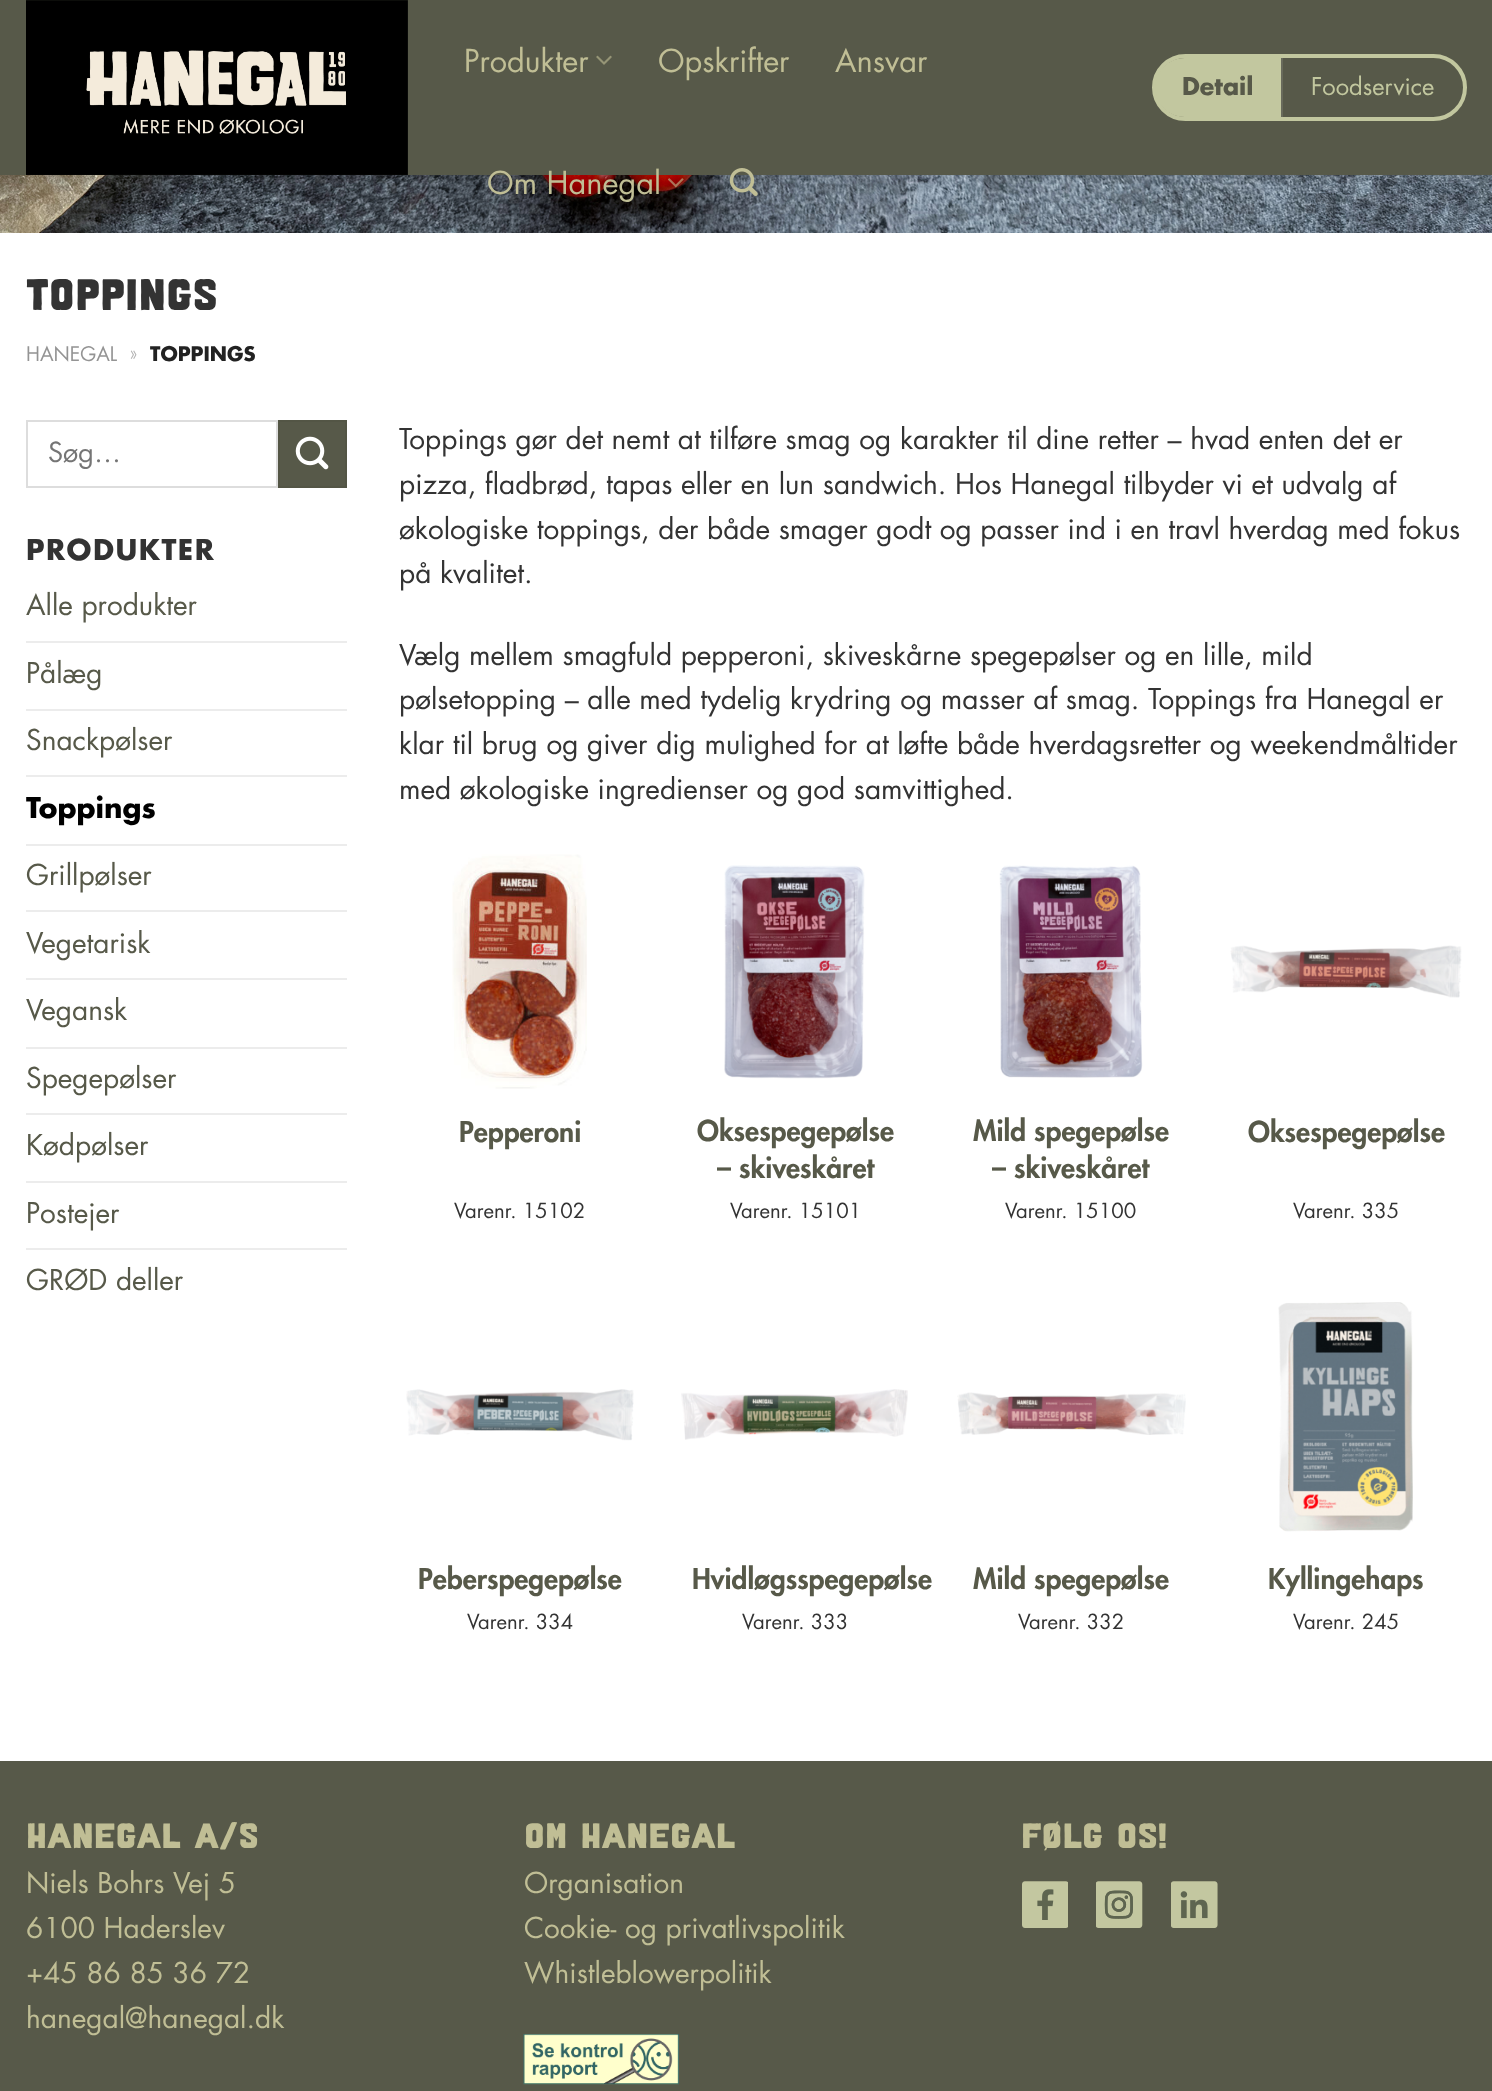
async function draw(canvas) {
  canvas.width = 1492;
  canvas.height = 2091;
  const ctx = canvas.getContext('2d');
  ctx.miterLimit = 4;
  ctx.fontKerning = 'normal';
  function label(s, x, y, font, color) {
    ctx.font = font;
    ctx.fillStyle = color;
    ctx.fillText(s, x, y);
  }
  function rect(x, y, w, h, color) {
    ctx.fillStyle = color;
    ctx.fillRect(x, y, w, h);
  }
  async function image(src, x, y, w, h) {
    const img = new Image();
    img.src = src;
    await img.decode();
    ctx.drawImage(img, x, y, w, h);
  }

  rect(0, 0, 1492, 2091, '#fff');
  await image('assets/img5.png', 0, 175, 1492, 58);
  ctx.fillStyle = '#00000026';
  ctx.filter = 'blur(9px)';
  ctx.beginPath();
  ctx.rect(2, 2, 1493, 175);
  ctx.fill();
  ctx.filter = 'none';
  rect(0, 0, 1492, 175, '#575949');
  await image('assets/img1.png', 26, 0, 382, 175);
  label('Produkter', 464, 72, '30.75px Futura', '#c0be95');
  await image('assets/img2.png', 596, 55, 16, 10);
  label('Opskrifter', 658, 72, '30.75px Futura', '#c0be95');
  label('Ansvar', 835, 72, '30.75px Futura', '#c0be95');
  label('Om Hanegal', 487, 194, '30.75px Futura', '#c0be95');
  await image('assets/img3.png', 668, 178, 16, 10);
  await image('assets/img4.png', 729, 168, 29, 28);
  ctx.beginPath();
  ctx.roundRect(1154, 56, 311, 63, 31.5);
  ctx.strokeStyle = '#c2c79f';
  ctx.lineWidth = 4;
  ctx.stroke();
  ctx.fillStyle = '#c2c79f';
  ctx.beginPath();
  ctx.roundRect(1155, 58, 126, 59, [29.5, 0, 0, 29.5]);
  ctx.fill();
  label('Detail', 1182, 95, 'bold 23.75px Futura', '#575949');
  rect(1281, 58, 2, 59, '#686a5b');
  label('Foodservice', 1311, 95, '23.75px Futura', '#c2c79f');
  label('Toppings', 26, 310, 'bold 42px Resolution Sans', '#333');
  label('HANEGAL', 26, 361, '19.5px Futura', '#949494');
  label('»', 130, 361, '300 19.5px Futura', '#b2b2b2');
  label('TOPPINGS', 150, 361, 'bold 19.5px Futura', '#222');
  ctx.strokeStyle = '#ddd';
  ctx.lineWidth = 2;
  ctx.strokeRect(27, 421, 250, 66);
  label('Søg…', 48, 462, '27px Futura', '#757575');
  ctx.fillStyle = '#575949';
  ctx.beginPath();
  ctx.rect(279, 421, 67, 66);
  ctx.fill();
  ctx.strokeStyle = '#535545';
  ctx.stroke();
  await image('assets/img6.png', 295, 436, 34, 34);
  ctx.letterSpacing = '1.5px';
  label('PRODUKTER', 26, 560, 'bold 28px Futura', '#333');
  ctx.letterSpacing = '0px';
  label('Alle produkter', 26, 615, '28px Futura', '#575949');
  rect(26, 641, 321, 2, '#ececec');
  label('Pålæg', 26, 683, '28px Futura', '#575949');
  rect(26, 709, 321, 2, '#ececec');
  label('Snackpølser', 26, 750, '28px Futura', '#575949');
  rect(26, 775, 321, 2, '#ececec');
  label('Toppings', 26, 818, 'bold 28px Futura', '#000');
  rect(26, 844, 321, 2, '#ececec');
  label('Grillpølser', 26, 885, '28px Futura', '#575949');
  rect(26, 910, 321, 2, '#ececec');
  label('Vegetarisk', 26, 953, '28px Futura', '#575949');
  rect(26, 978, 321, 2, '#ececec');
  label('Vegansk', 26, 1020, '28px Futura', '#575949');
  rect(26, 1047, 321, 2, '#ececec');
  label('Spegepølser', 26, 1088, '28px Futura', '#575949');
  rect(26, 1113, 321, 2, '#ececec');
  label('Kødpølser', 26, 1155, '28px Futura', '#575949');
  rect(26, 1181, 321, 2, '#ececec');
  label('Postejer', 26, 1223, '28px Futura', '#575949');
  rect(26, 1248, 321, 2, '#ececec');
  label('GRØD deller', 26, 1290, '28px Futura', '#575949');
  label('Toppings gør det nemt at tilføre smag og karakter til dine retter – hvad enten det er', 399, 449, '28px Futura', '#333');
  label('pizza, fladbrød, tapas eller en lun sandwich. Hos Hanegal tilbyder vi et udvalg af', 399, 494, '28px Futura', '#333');
  label('økologiske toppings, der både smager godt og passer ind i en travl hverdag med fokus', 399, 539, '28px Futura', '#333');
  label('på kvalitet.', 399, 583, '28px Futura', '#333');
  label('Vælg mellem smagfuld pepperoni, skiveskårne spegepølser og en lille, mild', 399, 665, '28px Futura', '#333');
  label('pølsetopping – alle med tydelig krydring og masser af smag. Toppings fra Hanegal er', 399, 709, '28px Futura', '#333');
  label('klar til brug og giver dig mulighed for at løfte både hverdagsretter og weekendmåltider', 399, 754, '28px Futura', '#333');
  label('med økologiske ingredienser og god samvittighed.', 399, 799, '28px Futura', '#333');
  await image('assets/img7.png', 452, 854, 135, 235);
  label('Pepperoni', 459, 1142, '900 28px Futura', '#575949');
  label('Varenr. 15102', 454, 1218, '20.25px Futura', '#333');
  await image('assets/img8.png', 724, 865, 141, 214);
  label('Oksespegepølse', 697, 1141, '900 28px Futura', '#575949');
  label('– skiveskåret', 717, 1178, '900 28px Futura', '#575949');
  label('Varenr. 15101', 730, 1218, '20.25px Futura', '#333');
  await image('assets/img9.png', 999, 865, 144, 213);
  label('Mild spegepølse', 973, 1141, '900 28px Futura', '#575949');
  label('– skiveskåret', 992, 1178, '900 28px Futura', '#575949');
  label('Varenr. 15100', 1005, 1218, '20.25px Futura', '#333');
  await image('assets/img10.png', 1230, 945, 232, 53);
  label('Oksespegepølse', 1248, 1142, '900 28px Futura', '#575949');
  label('Varenr. 335', 1293, 1218, '20.25px Futura', '#333');
  await image('assets/img11.png', 406, 1389, 228, 52);
  label('Peberspegepølse', 418, 1589, '900 28px Futura', '#575949');
  label('Varenr. 334', 467, 1629, '20.25px Futura', '#333');
  await image('assets/img12.png', 681, 1389, 227, 51);
  label('Hvidløgsspegepølse', 692, 1589, '900 28px Futura', '#575949');
  label('Varenr. 333', 742, 1629, '20.25px Futura', '#333');
  await image('assets/img13.png', 957, 1392, 229, 43);
  label('Mild spegepølse', 973, 1589, '900 28px Futura', '#575949');
  label('Varenr. 332', 1018, 1629, '20.25px Futura', '#333');
  await image('assets/img14.png', 1278, 1302, 135, 230);
  label('Kyllingehaps', 1268, 1589, '900 28px Futura', '#575949');
  label('Varenr. 245', 1293, 1629, '20.25px Futura', '#333');
  rect(0, 1761, 1492, 330, '#575949');
  label('Hanegal A/S', 26, 1848, 'bold 33.5px Resolution Sans', '#c0be95');
  label('Niels Bohrs Vej 5', 26, 1893, '28px Futura', '#c0be95');
  label('6100 Haderslev', 26, 1938, '28px Futura', '#c0be95');
  label('+45 86 85 36 72', 26, 1983, '28px Futura', '#c0be95');
  label('hanegal@hanegal.dk', 26, 2028, '28px Futura', '#c0be95');
  label('Om Hanegal', 524, 1848, 'bold 33.5px Resolution Sans', '#c0be95');
  label('Organisation', 524, 1893, '28px Futura', '#c0be95');
  label('Cookie- og privatlivspolitik', 524, 1938, '28px Futura', '#c0be95');
  label('Whistleblowerpolitik', 524, 1983, '28px Futura', '#c0be95');
  await image('assets/img15.png', 523, 2034, 156, 51);
  label('Følg os!', 1021, 1848, 'bold 33.5px Resolution Sans', '#c0be95');
  await image('assets/img16.png', 1022, 1881, 46, 47);
  await image('assets/img17.png', 1096, 1881, 47, 47);
  await image('assets/img18.png', 1171, 1881, 47, 47);
}

draw(document.querySelector('canvas'));
